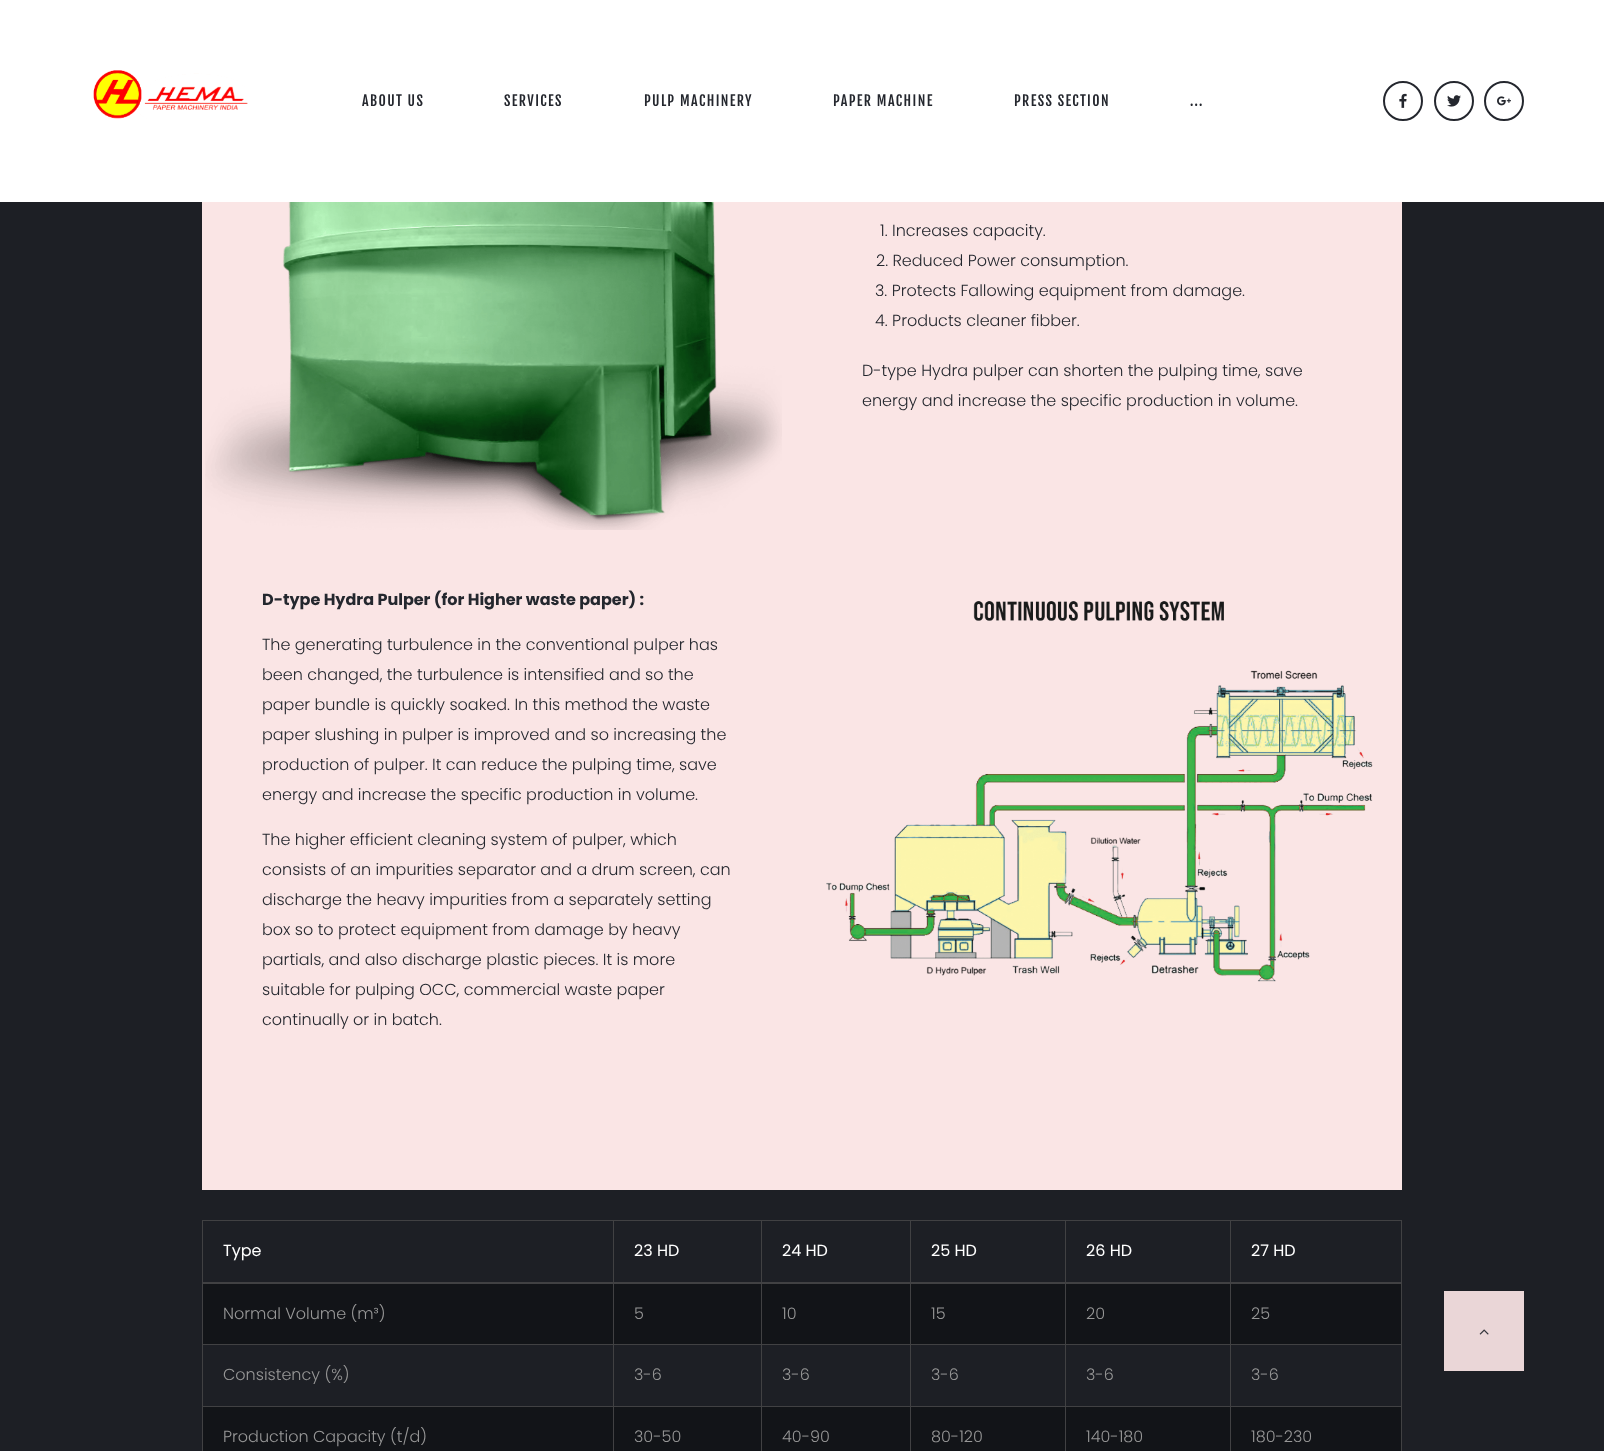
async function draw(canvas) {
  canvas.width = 1604;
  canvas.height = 1451;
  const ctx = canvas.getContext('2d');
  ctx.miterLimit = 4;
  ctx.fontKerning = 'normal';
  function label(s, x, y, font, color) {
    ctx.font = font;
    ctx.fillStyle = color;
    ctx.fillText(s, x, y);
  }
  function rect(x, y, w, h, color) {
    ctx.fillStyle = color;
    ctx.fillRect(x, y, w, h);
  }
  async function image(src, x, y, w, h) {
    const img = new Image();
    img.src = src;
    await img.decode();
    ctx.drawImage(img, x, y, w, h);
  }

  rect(0, 0, 1604, 1451, '#1d1f25');
  rect(0, 0, 1604, 202, '#fff');
  await image('assets/img1.png', 93, 70, 155, 49);
  ctx.letterSpacing = '1.4px';
  label('ABOUT US', 362, 106, '14px Fjalla One', '#24272e');
  label('SERVICES', 504, 106, '14px Fjalla One', '#24272e');
  label('PULP MACHINERY', 644, 106, '14px Fjalla One', '#24272e');
  label('PAPER MACHINE', 833, 106, '14px Fjalla One', '#24272e');
  label('PRESS SECTION', 1014, 106, '14px Fjalla One', '#24272e');
  label('...', 1190, 106, '14px Fjalla One', '#24272e');
  ctx.beginPath();
  ctx.arc(1403, 101, 19, 0, 2 * Math.PI);
  ctx.strokeStyle = '#24272e';
  ctx.lineWidth = 2;
  ctx.stroke();
  await image('assets/img2.png', 1399, 93, 8, 15);
  ctx.beginPath();
  ctx.arc(1454, 101, 19, 0, 2 * Math.PI);
  ctx.stroke();
  await image('assets/img3.png', 1447, 95, 14, 12);
  ctx.beginPath();
  ctx.arc(1504, 101, 19, 0, 2 * Math.PI);
  ctx.stroke();
  await image('assets/img4.png', 1497, 96, 14, 10);
  rect(202, 202, 1200, 988, '#fae5e5');
  await image('assets/img5.png', 205, 202, 577, 328);
  ctx.letterSpacing = '0px';
  label('1. Increases capacity.', 880, 236, '300 16px Poppins', '#24272e');
  label('2. Reduced Power consumption.', 876, 266, '300 16px Poppins', '#24272e');
  label('3. Protects Fallowing equipment from damage.', 875, 296, '300 16px Poppins', '#24272e');
  label('4. Products cleaner fibber.', 875, 326, '300 16px Poppins', '#24272e');
  label('D-type Hydra pulper can shorten the pulping time, save', 862, 376, '300 16px Poppins', '#24272e');
  label('energy and increase the specific production in volume.', 862, 406, '300 16px Poppins', '#24272e');
  label('D-type Hydra Pulper (for Higher waste paper) :', 262, 605, 'bold 16px Poppins', '#24272e');
  label('The generating turbulence in the conventional pulper has', 262, 650, '300 16px Poppins', '#24272e');
  label('been changed, the turbulence is intensified and so the', 262, 680, '300 16px Poppins', '#24272e');
  label('paper bundle is quickly soaked. In this method the waste', 262, 710, '300 16px Poppins', '#24272e');
  label('paper slushing in pulper is improved and so increasing the', 262, 740, '300 16px Poppins', '#24272e');
  label('production of pulper. It can reduce the pulping time, save', 262, 770, '300 16px Poppins', '#24272e');
  label('energy and increase the specific production in volume.', 262, 800, '300 16px Poppins', '#24272e');
  label('The higher efficient cleaning system of pulper, which', 262, 845, '300 16px Poppins', '#24272e');
  label('consists of an impurities separator and a drum screen, can', 262, 875, '300 16px Poppins', '#24272e');
  label('discharge the heavy impurities from a separately setting', 262, 905, '300 16px Poppins', '#24272e');
  label('box so to protect equipment from damage by heavy', 262, 935, '300 16px Poppins', '#24272e');
  label('partials, and also discharge plastic pieces. It is more', 262, 965, '300 16px Poppins', '#24272e');
  label('suitable for pulping OCC, commercial waste paper', 262, 995, '300 16px Poppins', '#24272e');
  label('continually or in batch.', 262, 1025, '300 16px Poppins', '#24272e');
  await image('assets/img6.png', 826, 601, 547, 381);
  rect(202, 1220, 1200, 1, '#414143');
  label('Type', 223, 1256, '16px Poppins', '#fff');
  label('23 HD', 634, 1256, '16px Poppins', '#fff');
  label('24 HD', 782, 1256, '16px Poppins', '#fff');
  label('25 HD', 931, 1256, '16px Poppins', '#fff');
  label('26 HD', 1086, 1256, '16px Poppins', '#fff');
  rect(1230, 1344, 172, 1, '#414143');
  rect(1230, 1406, 172, 1, '#414143');
  rect(1230, 1406, 1, 45, '#414143');
  rect(1065, 1406, 166, 1, '#414143');
  rect(1230, 1344, 1, 63, '#414143');
  rect(1065, 1344, 166, 1, '#414143');
  rect(1065, 1406, 1, 45, '#414143');
  rect(910, 1406, 156, 1, '#414143');
  rect(1065, 1344, 1, 63, '#414143');
  rect(910, 1344, 156, 1, '#414143');
  rect(910, 1406, 1, 45, '#414143');
  rect(761, 1406, 150, 1, '#414143');
  rect(910, 1344, 1, 63, '#414143');
  rect(761, 1344, 150, 1, '#414143');
  rect(761, 1406, 1, 45, '#414143');
  rect(613, 1406, 149, 1, '#414143');
  rect(761, 1344, 1, 63, '#414143');
  rect(613, 1344, 149, 1, '#414143');
  rect(613, 1406, 1, 45, '#414143');
  rect(202, 1406, 412, 1, '#414143');
  rect(613, 1344, 1, 63, '#414143');
  rect(202, 1344, 412, 1, '#414143');
  rect(613, 1220, 1, 125, '#414143');
  rect(761, 1220, 1, 125, '#414143');
  rect(910, 1220, 1, 125, '#414143');
  rect(1065, 1220, 1, 125, '#414143');
  rect(1230, 1220, 1, 125, '#414143');
  rect(202, 1406, 1, 45, '#414143');
  rect(202, 1220, 1, 187, '#414143');
  rect(1401, 1406, 1, 45, '#414143');
  rect(1401, 1220, 1, 187, '#414143');
  rect(202, 1282, 1200, 2, '#414143');
  label('27 HD', 1251, 1256, '16px Poppins', '#fff');
  rect(203, 1284, 410, 60, '#121418');
  label('Normal Volume (m³)', 223, 1319, '300 16px Poppins', '#979797');
  rect(614, 1284, 147, 60, '#121418');
  label('5', 634, 1319, '300 16px Poppins', '#979797');
  rect(762, 1284, 148, 60, '#121418');
  label('10', 782, 1319, '300 16px Poppins', '#979797');
  rect(911, 1284, 154, 60, '#121418');
  label('15', 931, 1319, '300 16px Poppins', '#979797');
  rect(1066, 1284, 164, 60, '#121418');
  label('20', 1086, 1319, '300 16px Poppins', '#979797');
  rect(1231, 1284, 170, 60, '#121418');
  label('25', 1251, 1319, '300 16px Poppins', '#979797');
  label('Consistency (%)', 223, 1380, '300 16px Poppins', '#979797');
  label('3-6', 634, 1380, '300 16px Poppins', '#979797');
  label('3-6', 782, 1380, '300 16px Poppins', '#979797');
  label('3-6', 931, 1380, '300 16px Poppins', '#979797');
  label('3-6', 1086, 1380, '300 16px Poppins', '#979797');
  label('3-6', 1251, 1380, '300 16px Poppins', '#979797');
  rect(203, 1407, 410, 44, '#121418');
  label('Production Capacity (t/d)', 223, 1442, '300 16px Poppins', '#979797');
  rect(614, 1407, 147, 44, '#121418');
  label('30-50', 634, 1442, '300 16px Poppins', '#979797');
  rect(762, 1407, 148, 44, '#121418');
  label('40-90', 782, 1442, '300 16px Poppins', '#979797');
  rect(911, 1407, 154, 44, '#121418');
  label('80-120', 931, 1442, '300 16px Poppins', '#979797');
  rect(1066, 1407, 164, 44, '#121418');
  label('140-180', 1086, 1442, '300 16px Poppins', '#979797');
  rect(1231, 1407, 170, 44, '#121418');
  label('180-230', 1251, 1442, '300 16px Poppins', '#979797');
  rect(1444, 1291, 80, 80, '#ead6d7');
  await image('assets/img7.png', 1479, 1329, 10, 6);
}

draw(document.querySelector('canvas'));
